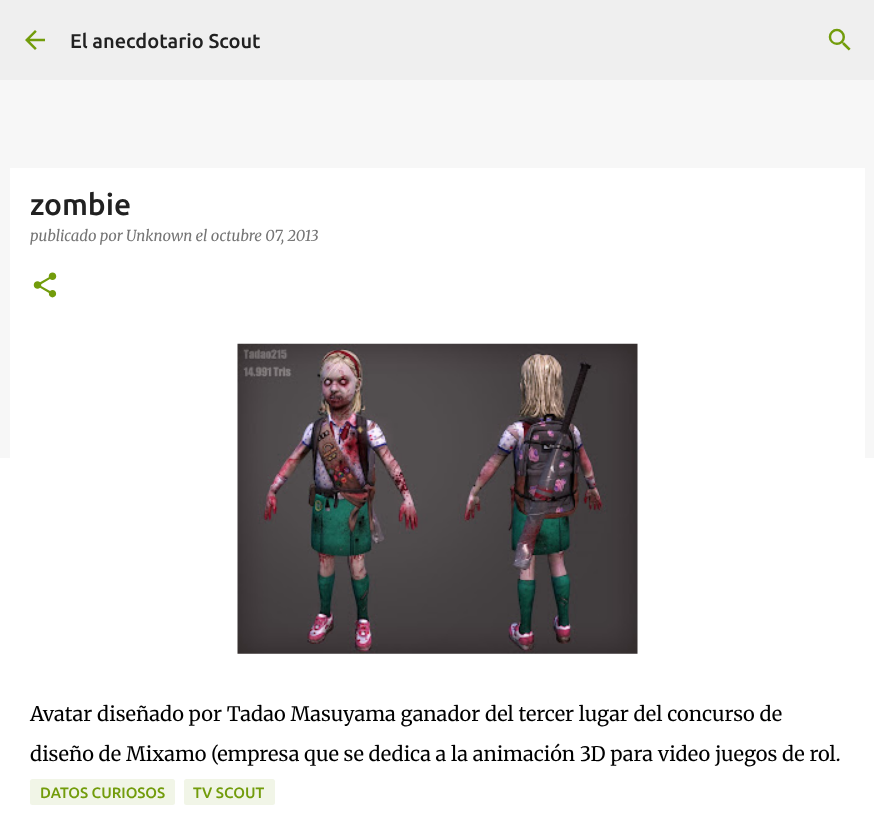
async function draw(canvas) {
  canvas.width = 874;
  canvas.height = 820;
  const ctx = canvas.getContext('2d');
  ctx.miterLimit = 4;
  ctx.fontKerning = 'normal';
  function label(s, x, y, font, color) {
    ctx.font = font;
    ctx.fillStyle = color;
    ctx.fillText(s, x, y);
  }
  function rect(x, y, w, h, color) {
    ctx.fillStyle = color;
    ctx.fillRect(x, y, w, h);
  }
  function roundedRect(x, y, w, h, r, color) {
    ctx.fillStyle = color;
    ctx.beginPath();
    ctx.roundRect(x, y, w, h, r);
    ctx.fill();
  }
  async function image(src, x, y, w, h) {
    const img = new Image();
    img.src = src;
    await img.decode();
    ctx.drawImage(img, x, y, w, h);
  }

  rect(0, 0, 874, 820, '#f7f7f7');
  rect(0, 0, 874, 80, '#efefef');
  await image('assets/img1.png', 25, 30, 20, 20);
  label('El anecdotario Scout', 70, 48, '500 20px Ubuntu', '#212121');
  await image('assets/img2.png', 828, 28, 23, 23);
  rect(0, 458, 874, 362, '#fff');
  rect(10, 168, 855, 290, '#fff');
  label('zombie', 30, 215, '500 30px Ubuntu', '#212121');
  label('publicado por Unknown el octubre 07, 2013', 30, 241, 'italic 15px Merriweather', '#757575');
  await image('assets/img3.png', 33, 272, 24, 26);
  await image('assets/img4.png', 237, 343, 401, 311);
  label('Avatar diseñado por Tadao Masuyama ganador del tercer lugar del concurso de', 30, 721, '300 20px Merriweather', '#000');
  label('diseño de Mixamo (empresa que se dedica a la animación 3D para video juegos de rol.', 30, 761, '300 20px Merriweather', '#000');
  roundedRect(30, 779, 145, 26, 2.5, '#f1f5e7');
  label('DATOS CURIOSOS', 40, 798, '500 15px Ubuntu', '#729c0b');
  roundedRect(184, 779, 91, 26, 2.5, '#f1f5e7');
  label('TV SCOUT', 193, 798, '500 15px Ubuntu', '#729c0b');
}

draw(document.querySelector('canvas'));
